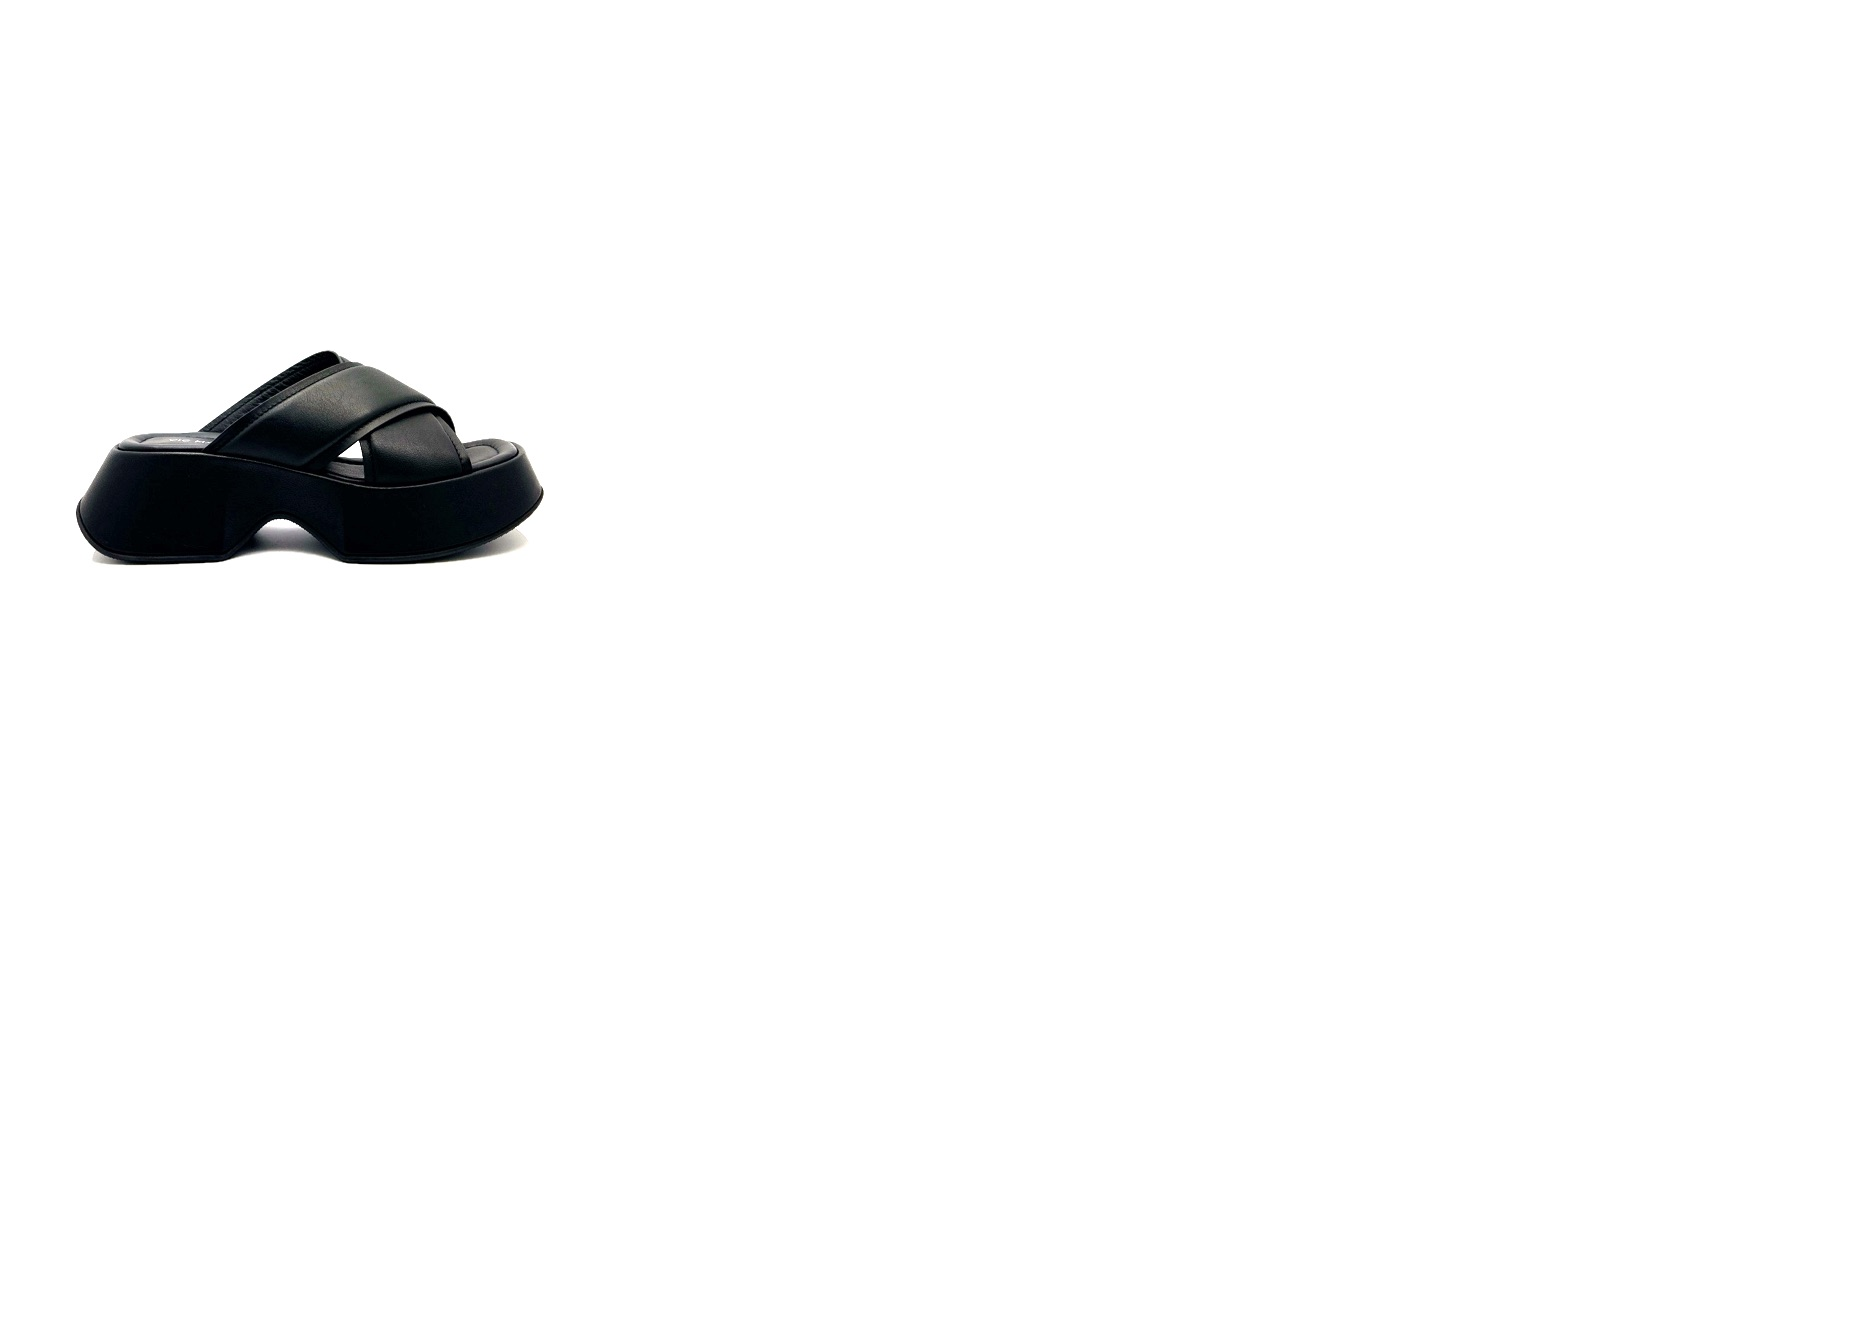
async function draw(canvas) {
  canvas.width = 1855;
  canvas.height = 1318;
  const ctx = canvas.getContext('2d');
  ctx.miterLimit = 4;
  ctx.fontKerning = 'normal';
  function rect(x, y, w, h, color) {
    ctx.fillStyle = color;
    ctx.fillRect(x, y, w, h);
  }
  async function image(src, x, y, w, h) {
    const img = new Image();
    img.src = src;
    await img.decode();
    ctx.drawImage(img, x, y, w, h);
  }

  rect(0, 0, 1855, 1318, '#fff');
  await image('assets/img1.png', 74, 349, 470, 219);
}

draw(document.querySelector('canvas'));
